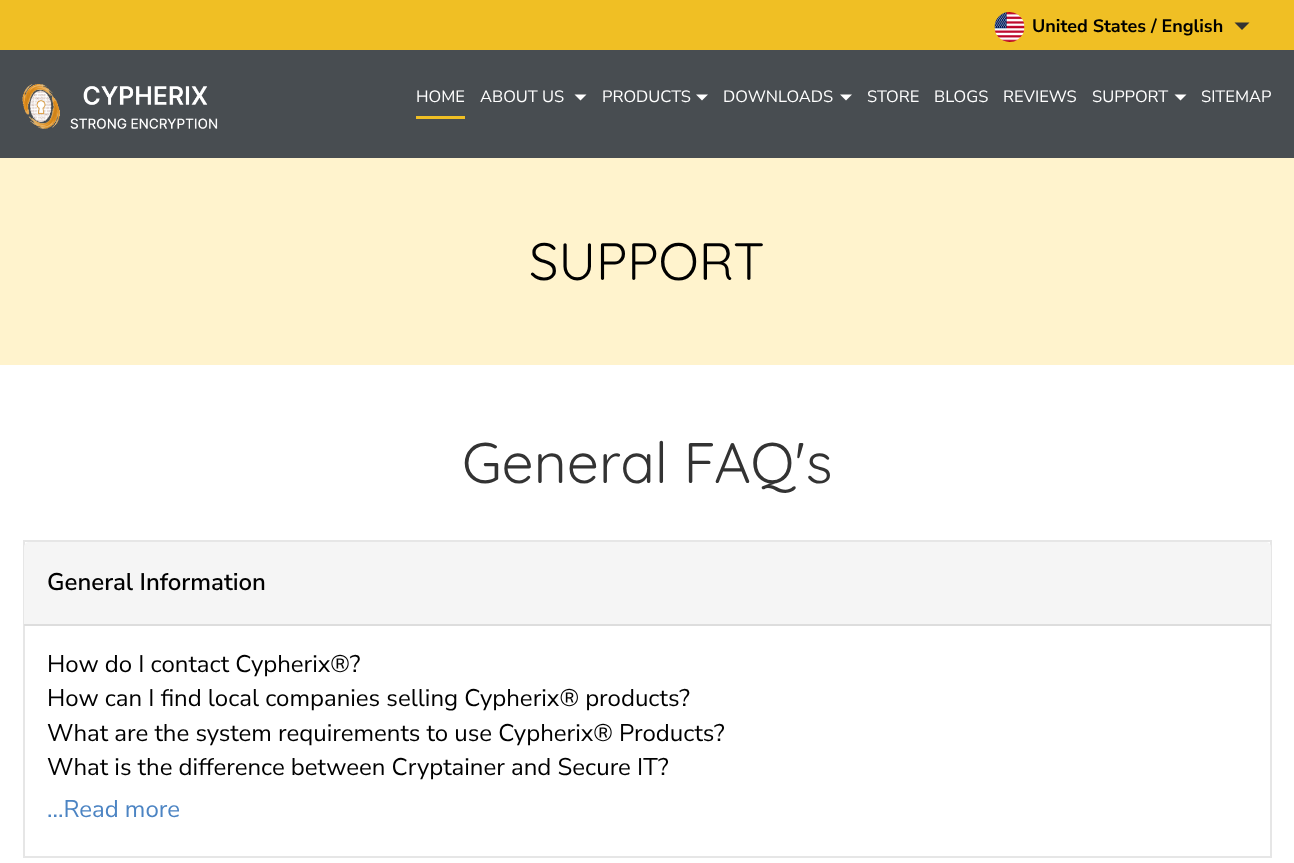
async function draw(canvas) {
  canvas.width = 1294;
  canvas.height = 863;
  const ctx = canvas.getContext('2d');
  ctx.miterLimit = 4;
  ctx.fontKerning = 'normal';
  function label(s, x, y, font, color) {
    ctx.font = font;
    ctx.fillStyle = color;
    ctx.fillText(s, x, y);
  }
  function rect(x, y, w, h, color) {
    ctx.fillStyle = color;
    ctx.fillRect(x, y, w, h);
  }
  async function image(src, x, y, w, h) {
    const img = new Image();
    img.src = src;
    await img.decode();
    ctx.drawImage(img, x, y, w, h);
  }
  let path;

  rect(0, 0, 1294, 863, '#fff');
  rect(0, 0, 1294, 50, '#f0bf24');
  await image('assets/img1.png', 994, 12, 31, 30);
  label('United States / English', 1032, 32, 'bold 18px Nunito Sans', '#000');
  ctx.fillStyle = '#333';
  path = new Path2D('M1234.5 22.5H1249.5L1242 30Z');
  ctx.fill(path);
  rect(0, 50, 1294, 108, '#484d51');
  await image('assets/img2.png', 22, 84, 196, 45);
  rect(416, 116, 49, 3, '#f0bf24');
  label('HOME', 416, 102, '16.5px Nunito Sans', '#fff');
  label('ABOUT US', 480, 102, '16.5px Nunito Sans', '#fff');
  path = new Path2D('M574.5 94.5H586.5L580.5 100.5Z');
  ctx.fill(path);
  label('PRODUCTS', 602, 102, '16.5px Nunito Sans', '#fff');
  path = new Path2D('M696 94.5H708L702 100.5Z');
  ctx.fill(path);
  label('DOWNLOADS', 723, 102, '16.5px Nunito Sans', '#fff');
  path = new Path2D('M840 94.5H852L846 100.5Z');
  ctx.fill(path);
  label('STORE', 867, 102, '16.5px Nunito Sans', '#fff');
  label('BLOGS', 934, 102, '16.5px Nunito Sans', '#fff');
  label('REVIEWS', 1003, 102, '16.5px Nunito Sans', '#fff');
  label('SUPPORT', 1092, 102, '16.5px Nunito Sans', '#fff');
  path = new Path2D('M1174.5 94.5H1186.5L1180.5 100.5Z');
  ctx.fill(path);
  label('SITEMAP', 1201, 102, '16.5px Nunito Sans', '#fff');
  rect(0, 158, 1294, 207, '#fff3cd');
  label('SUPPORT', 529, 280, '52.5px Quicksand', '#000');
  label('General FAQ\'s', 462, 483, '57px Quicksand', '#333');
  ctx.strokeStyle = '#e6e6e6';
  ctx.lineWidth = 2;
  ctx.strokeRect(24, 541, 1247, 316);
  ctx.fillStyle = '#f5f5f5';
  ctx.beginPath();
  ctx.roundRect(24, 542, 1247, 82, [5, 5, 0, 0]);
  ctx.fill();
  label('General Information', 47, 590, '600 24px Nunito Sans', '#000');
  rect(24, 624, 1247, 2, '#ddd');
  label('How do I contact Cypherix®?', 47, 672, '24px Nunito Sans', '#000');
  label('How can I find local companies selling Cypherix® products?', 47, 706, '24px Nunito Sans', '#000');
  label('What are the system requirements to use Cypherix® Products?', 47, 741, '24px Nunito Sans', '#000');
  label('What is the difference between Cryptainer and Secure IT?', 47, 775, '24px Nunito Sans', '#000');
  label('...Read more', 47, 817, '24px Nunito Sans', '#4c84c3');
}

draw(document.querySelector('canvas'));
